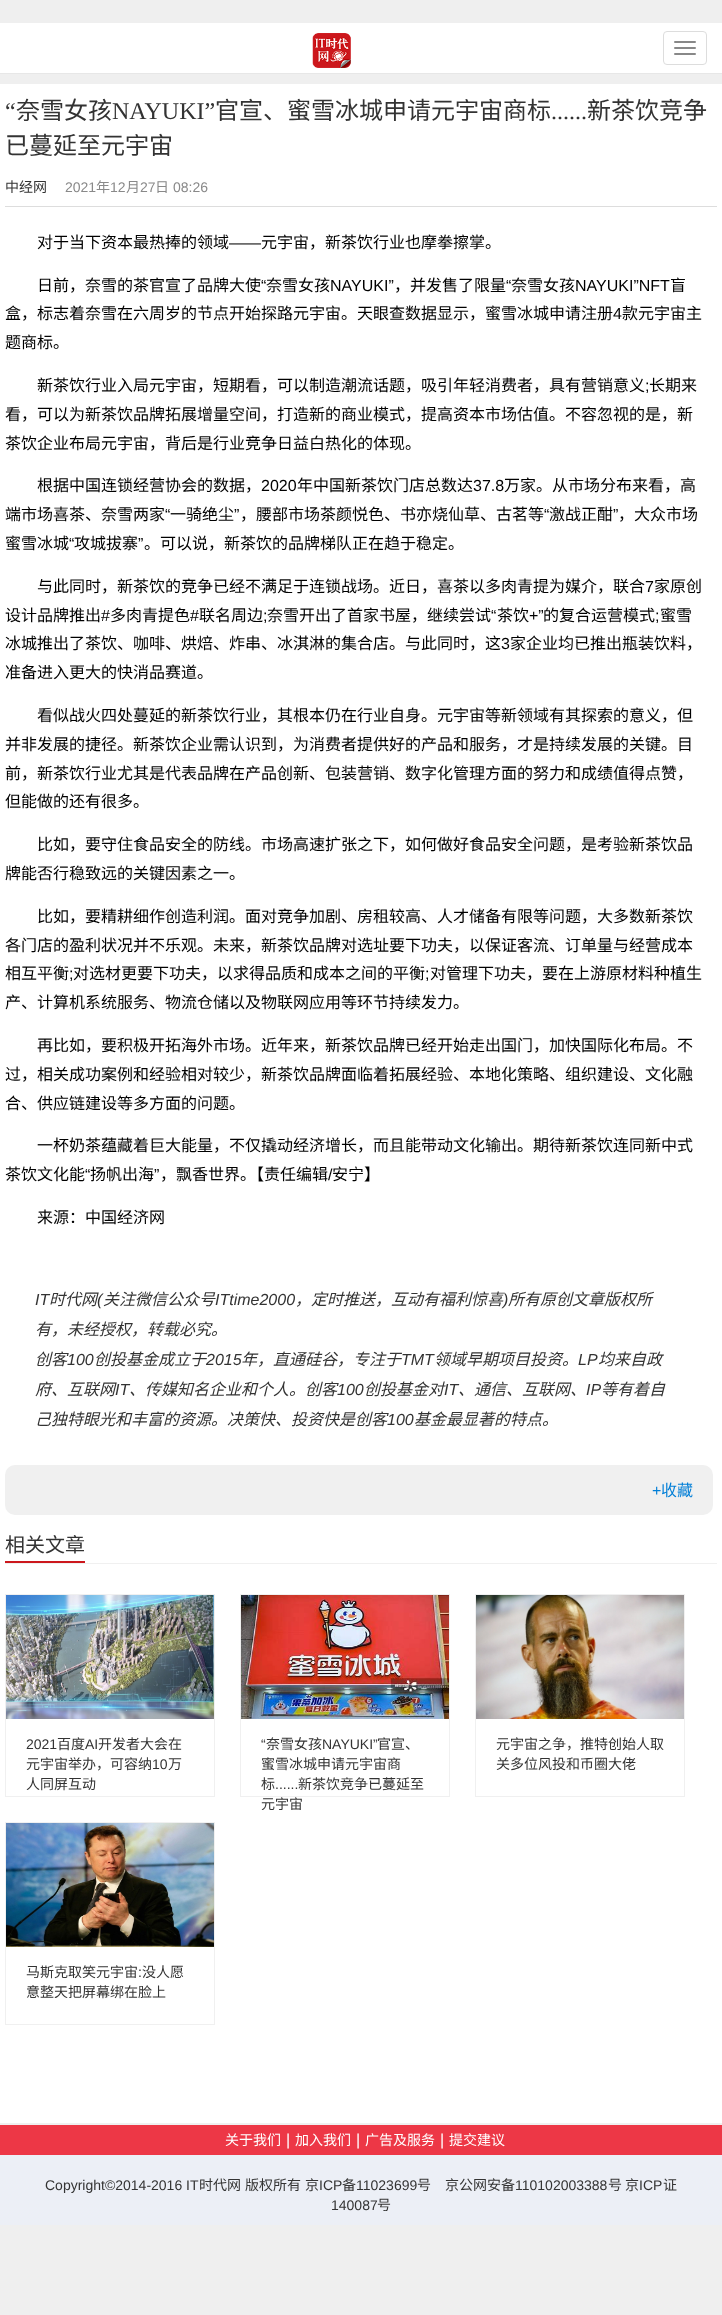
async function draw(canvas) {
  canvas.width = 722;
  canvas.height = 2315;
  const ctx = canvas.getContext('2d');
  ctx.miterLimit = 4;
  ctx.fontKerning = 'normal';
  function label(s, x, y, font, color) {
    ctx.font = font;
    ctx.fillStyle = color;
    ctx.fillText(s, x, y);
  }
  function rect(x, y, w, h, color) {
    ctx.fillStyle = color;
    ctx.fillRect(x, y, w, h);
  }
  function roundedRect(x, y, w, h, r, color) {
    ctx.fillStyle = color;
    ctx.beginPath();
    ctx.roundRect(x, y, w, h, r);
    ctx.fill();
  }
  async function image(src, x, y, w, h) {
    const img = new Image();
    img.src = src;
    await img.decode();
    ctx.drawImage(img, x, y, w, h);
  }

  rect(0, 0, 722, 2315, '#efefef');
  ctx.fillStyle = '#0000004d';
  ctx.filter = 'blur(0.5px)';
  ctx.beginPath();
  ctx.rect(0, 23, 722, 51);
  ctx.fill();
  ctx.filter = 'none';
  rect(0, 23, 722, 50, '#fff');
  rect(0, 73, 722, 1, '#e7e7e7');
  await image('assets/img1.png', 312, 33, 39, 35);
  ctx.beginPath();
  ctx.roundRect(663.5, 31.5, 43, 33, 3.5);
  ctx.strokeStyle = '#ddd';
  ctx.stroke();
  roundedRect(674, 41, 22, 2, 1, '#888');
  roundedRect(674, 47, 22, 2, 1, '#888');
  roundedRect(674, 53, 22, 2, 1, '#888');
  rect(0, 84, 722, 2039, '#fff');
  label('“', 5, 119, '24px Liberation Serif', '#333');
  label('奈雪女孩', 16, 119, '24px Noto Sans CJK SC', '#333');
  label('NAYUKI”', 112, 119, '24px Liberation Serif', '#333');
  label('官宣、蜜雪冰城申请元宇宙商标', 215, 119, '24px Noto Sans CJK SC', '#333');
  label('......', 551, 119, '24px Liberation Serif', '#333');
  label('新茶饮竞争', 587, 119, '24px Noto Sans CJK SC', '#333');
  label('已蔓延至元宇宙', 5, 154, '24px Noto Sans CJK SC', '#333');
  rect(5, 206, 712, 1, '#ddd');
  label('中经网', 5, 192, '14px Noto Sans CJK SC', '#333');
  label('2021', 65, 192, '14px Liberation Sans', '#898989');
  label('年', 96, 192, '14px Noto Sans CJK SC', '#898989');
  label('12', 110, 192, '14px Liberation Sans', '#898989');
  label('月', 126, 192, '14px Noto Sans CJK SC', '#898989');
  label('27', 140, 192, '14px Liberation Sans', '#898989');
  label('日', 155, 192, '14px Noto Sans CJK SC', '#898989');
  label('08:26', 173, 192, '14px Liberation Sans', '#898989');
  label('对于当下资本最热捧的领域', 37, 248, '16px Noto Sans CJK SC', '#000');
  label('——', 229, 248, '16px Liberation Sans', '#000');
  label('元宇宙，新茶饮行业也摩拳擦掌。', 261, 248, '16px Noto Sans CJK SC', '#000');
  label('日前，奈雪的茶官宣了品牌大使', 37, 291, '16px Noto Sans CJK SC', '#000');
  label('“', 261, 291, '16px Liberation Sans', '#000');
  label('奈雪女孩', 266, 291, '16px Noto Sans CJK SC', '#000');
  label('NAYUKI”', 330, 291, '16px Liberation Sans', '#000');
  label('，并发售了限量', 394, 291, '16px Noto Sans CJK SC', '#000');
  label('“', 506, 291, '16px Liberation Sans', '#000');
  label('奈雪女孩', 511, 291, '16px Noto Sans CJK SC', '#000');
  label('NAYUKI”NFT', 575, 291, '16px Liberation Sans', '#000');
  label('盲', 670, 291, '16px Noto Sans CJK SC', '#000');
  label('盒，标志着奈雪在六周岁的节点开始探路元宇宙。天眼查数据显示，蜜雪冰城申请注册', 5, 319, '16px Noto Sans CJK SC', '#000');
  label('4', 613, 319, '16px Liberation Sans', '#000');
  label('款元宇宙主', 622, 319, '16px Noto Sans CJK SC', '#000');
  label('题商标。', 5, 348, '16px Noto Sans CJK SC', '#000');
  label('新茶饮行业入局元宇宙，短期看，可以制造潮流话题，吸引年轻消费者，具有营销意义', 37, 391, '16px Noto Sans CJK SC', '#000');
  label(';', 645, 391, '16px Liberation Sans', '#000');
  label('长期来', 649, 391, '16px Noto Sans CJK SC', '#000');
  label('看，可以为新茶饮品牌拓展增量空间，打造新的商业模式，提高资本市场估值。不容忽视的是，新', 5, 420, '16px Noto Sans CJK SC', '#000');
  label('茶饮企业布局元宇宙，背后是行业竞争日益白热化的体现。', 5, 449, '16px Noto Sans CJK SC', '#000');
  label('根据中国连锁经营协会的数据，', 37, 491, '16px Noto Sans CJK SC', '#000');
  label('2020', 261, 491, '16px Liberation Sans', '#000');
  label('年中国新茶饮门店总数达', 297, 491, '16px Noto Sans CJK SC', '#000');
  label('37.8', 473, 491, '16px Liberation Sans', '#000');
  label('万家。从市场分布来看，高', 504, 491, '16px Noto Sans CJK SC', '#000');
  label('端市场喜茶、奈雪两家', 5, 520, '16px Noto Sans CJK SC', '#000');
  label('“', 165, 520, '16px Liberation Sans', '#000');
  label('一骑绝尘', 170, 520, '16px Noto Sans CJK SC', '#000');
  label('”', 234, 520, '16px Liberation Sans', '#000');
  label('，腰部市场茶颜悦色、书亦烧仙草、古茗等', 240, 520, '16px Noto Sans CJK SC', '#000');
  label('“', 544, 520, '16px Liberation Sans', '#000');
  label('激战正酣', 549, 520, '16px Noto Sans CJK SC', '#000');
  label('”', 613, 520, '16px Liberation Sans', '#000');
  label('，大众市场', 618, 520, '16px Noto Sans CJK SC', '#000');
  label('蜜雪冰城', 5, 549, '16px Noto Sans CJK SC', '#000');
  label('“', 69, 549, '16px Liberation Sans', '#000');
  label('攻城拔寨', 74, 549, '16px Noto Sans CJK SC', '#000');
  label('”', 138, 549, '16px Liberation Sans', '#000');
  label('。可以说，新茶饮的品牌梯队正在趋于稳定。', 144, 549, '16px Noto Sans CJK SC', '#000');
  label('与此同时，新茶饮的竞争已经不满足于连锁战场。近日，喜茶以多肉青提为媒介，联合', 37, 592, '16px Noto Sans CJK SC', '#000');
  label('7', 645, 592, '16px Liberation Sans', '#000');
  label('家原创', 654, 592, '16px Noto Sans CJK SC', '#000');
  label('设计品牌推出', 5, 621, '16px Noto Sans CJK SC', '#000');
  label('#', 101, 621, '16px Liberation Sans', '#000');
  label('多肉青提色', 110, 621, '16px Noto Sans CJK SC', '#000');
  label('#', 190, 621, '16px Liberation Sans', '#000');
  label('联名周边', 199, 621, '16px Noto Sans CJK SC', '#000');
  label(';', 263, 621, '16px Liberation Sans', '#000');
  label('奈雪开出了首家书屋，继续尝试', 267, 621, '16px Noto Sans CJK SC', '#000');
  label('“', 491, 621, '16px Liberation Sans', '#000');
  label('茶饮', 497, 621, '16px Noto Sans CJK SC', '#000');
  label('+”', 529, 621, '16px Liberation Sans', '#000');
  label('的复合运营模式', 543, 621, '16px Noto Sans CJK SC', '#000');
  label(';', 655, 621, '16px Liberation Sans', '#000');
  label('蜜雪', 660, 621, '16px Noto Sans CJK SC', '#000');
  label('冰城推出了茶饮、咖啡、烘焙、炸串、冰淇淋的集合店。与此同时，这', 5, 649, '16px Noto Sans CJK SC', '#000');
  label('3', 501, 649, '16px Liberation Sans', '#000');
  label('家企业均已推出瓶装饮料，', 510, 649, '16px Noto Sans CJK SC', '#000');
  label('准备进入更大的快消品赛道。', 5, 678, '16px Noto Sans CJK SC', '#000');
  label('看似战火四处蔓延的新茶饮行业，其根本仍在行业自身。元宇宙等新领域有其探索的意义，但', 37, 721, '16px Noto Sans CJK SC', '#000');
  label('并非发展的捷径。新茶饮企业需认识到，为消费者提供好的产品和服务，才是持续发展的关键。目', 5, 750, '16px Noto Sans CJK SC', '#000');
  label('前，新茶饮行业尤其是代表品牌在产品创新、包装营销、数字化管理方面的努力和成绩值得点赞，', 5, 779, '16px Noto Sans CJK SC', '#000');
  label('但能做的还有很多。', 5, 807, '16px Noto Sans CJK SC', '#000');
  label('比如，要守住食品安全的防线。市场高速扩张之下，如何做好食品安全问题，是考验新茶饮品', 37, 850, '16px Noto Sans CJK SC', '#000');
  label('牌能否行稳致远的关键因素之一。', 5, 879, '16px Noto Sans CJK SC', '#000');
  label('比如，要精耕细作创造利润。面对竞争加剧、房租较高、人才储备有限等问题，大多数新茶饮', 37, 922, '16px Noto Sans CJK SC', '#000');
  label('各门店的盈利状况并不乐观。未来，新茶饮品牌对选址要下功夫，以保证客流、订单量与经营成本', 5, 951, '16px Noto Sans CJK SC', '#000');
  label('相互平衡', 5, 979, '16px Noto Sans CJK SC', '#000');
  label(';', 69, 979, '16px Liberation Sans', '#000');
  label('对选材更要下功夫，以求得品质和成本之间的平衡', 73, 979, '16px Noto Sans CJK SC', '#000');
  label(';', 425, 979, '16px Liberation Sans', '#000');
  label('对管理下功夫，要在上游原材料种植生', 430, 979, '16px Noto Sans CJK SC', '#000');
  label('产、计算机系统服务、物流仓储以及物联网应用等环节持续发力。', 5, 1008, '16px Noto Sans CJK SC', '#000');
  label('再比如，要积极开拓海外市场。近年来，新茶饮品牌已经开始走出国门，加快国际化布局。不', 37, 1051, '16px Noto Sans CJK SC', '#000');
  label('过，相关成功案例和经验相对较少，新茶饮品牌面临着拓展经验、本地化策略、组织建设、文化融', 5, 1080, '16px Noto Sans CJK SC', '#000');
  label('合、供应链建设等多方面的问题。', 5, 1109, '16px Noto Sans CJK SC', '#000');
  label('一杯奶茶蕴藏着巨大能量，不仅撬动经济增长，而且能带动文化输出。期待新茶饮连同新中式', 37, 1151, '16px Noto Sans CJK SC', '#000');
  label('茶饮文化能', 5, 1180, '16px Noto Sans CJK SC', '#000');
  label('“', 85, 1180, '16px Liberation Sans', '#000');
  label('扬帆出海', 90, 1180, '16px Noto Sans CJK SC', '#000');
  label('”', 154, 1180, '16px Liberation Sans', '#000');
  label('，飘香世界。【责任编辑', 160, 1180, '16px Noto Sans CJK SC', '#000');
  label('/', 328, 1180, '16px Liberation Sans', '#000');
  label('安宁】', 332, 1180, '16px Noto Sans CJK SC', '#000');
  label('来源：中国经济网', 37, 1223, '16px Noto Sans CJK SC', '#000');
  label('IT', 35, 1305, 'italic 16px Liberation Sans', '#333');
  label('时代网', 49, 1305, 'italic 16px Noto Sans CJK SC', '#333');
  label('(', 97, 1305, 'italic 16px Liberation Sans', '#333');
  label('关注微信公众号', 103, 1305, 'italic 16px Noto Sans CJK SC', '#333');
  label('ITtime2000', 215, 1305, 'italic 16px Liberation Sans', '#333');
  label('，定时推送，互动有福利惊喜', 295, 1305, 'italic 16px Noto Sans CJK SC', '#333');
  label('所有原创文章版权所', 508, 1305, 'italic 16px Noto Sans CJK SC', '#333');
  label(')', 503, 1305, 'italic 16px Liberation Sans', '#333');
  label('有，未经授权，转载必究。', 35, 1335, 'italic 16px Noto Sans CJK SC', '#333');
  label('创客', 35, 1365, 'italic 16px Noto Sans CJK SC', '#333');
  label('100', 67, 1365, 'italic 16px Liberation Sans', '#333');
  label('创投基金成立于', 94, 1365, 'italic 16px Noto Sans CJK SC', '#333');
  label('2015', 206, 1365, 'italic 16px Liberation Sans', '#333');
  label('年，直通硅谷，专注于', 241, 1365, 'italic 16px Noto Sans CJK SC', '#333');
  label('TMT', 401, 1365, 'italic 16px Liberation Sans', '#333');
  label('领域早期项目投资。', 434, 1365, 'italic 16px Noto Sans CJK SC', '#333');
  label('LP', 578, 1365, 'italic 16px Liberation Sans', '#333');
  label('均来自政', 598, 1365, 'italic 16px Noto Sans CJK SC', '#333');
  label('府、互联网', 35, 1395, 'italic 16px Noto Sans CJK SC', '#333');
  label('IT', 115, 1395, 'italic 16px Liberation Sans', '#333');
  label('、传媒知名企业和个人。创客', 129, 1395, 'italic 16px Noto Sans CJK SC', '#333');
  label('100', 337, 1395, 'italic 16px Liberation Sans', '#333');
  label('创投基金对', 364, 1395, 'italic 16px Noto Sans CJK SC', '#333');
  label('IT', 444, 1395, 'italic 16px Liberation Sans', '#333');
  label('、通信、互联网、', 458, 1395, 'italic 16px Noto Sans CJK SC', '#333');
  label('IP', 586, 1395, 'italic 16px Liberation Sans', '#333');
  label('等有着自', 601, 1395, 'italic 16px Noto Sans CJK SC', '#333');
  label('己独特眼光和丰富的资源。决策快、投资快是创客', 35, 1425, 'italic 16px Noto Sans CJK SC', '#333');
  label('100', 387, 1425, 'italic 16px Liberation Sans', '#333');
  label('基金最显著的特点。', 414, 1425, 'italic 16px Noto Sans CJK SC', '#333');
  roundedRect(5, 1465, 708, 50, 10, '#f0f0f0');
  label('+', 652, 1496, '16px Liberation Sans', '#007ed7');
  label('收藏', 661, 1496, '16px Noto Sans CJK SC', '#007ed7');
  rect(5, 1561, 80, 2, '#cc171c');
  label('相关文章', 5, 1552, '20px Noto Sans CJK SC', '#333');
  rect(5, 1563, 712, 1, '#f0f0f0');
  ctx.strokeStyle = '#f0f0f0';
  ctx.strokeRect(5.5, 1594.5, 209, 202);
  await image('assets/img2.png', 6, 1595, 208, 124);
  label('2021', 26, 1749, '14px Liberation Sans', '#333');
  label('百度', 57, 1749, '14px Noto Sans CJK SC', '#333');
  label('AI', 85, 1749, '14px Liberation Sans', '#333');
  label('开发者大会在', 98, 1749, '14px Noto Sans CJK SC', '#333');
  label('元宇宙举办，可容纳', 26, 1769, '14px Noto Sans CJK SC', '#333');
  label('10', 152, 1769, '14px Liberation Sans', '#333');
  label('万', 168, 1769, '14px Noto Sans CJK SC', '#333');
  label('人同屏互动', 26, 1789, '14px Noto Sans CJK SC', '#333');
  ctx.strokeRect(240.5, 1594.5, 209, 202);
  await image('assets/img3.png', 241, 1595, 208, 124);
  label('“', 261, 1749, '14px Liberation Sans', '#333');
  label('奈雪女孩', 266, 1749, '14px Noto Sans CJK SC', '#333');
  label('NAYUKI”', 322, 1749, '14px Liberation Sans', '#333');
  label('官宣、', 377, 1749, '14px Noto Sans CJK SC', '#333');
  label('蜜雪冰城申请元宇宙商', 261, 1769, '14px Noto Sans CJK SC', '#333');
  label('标', 261, 1789, '14px Noto Sans CJK SC', '#333');
  label('......', 275, 1789, '14px Liberation Sans', '#333');
  label('新茶饮竞争已蔓延至', 298, 1789, '14px Noto Sans CJK SC', '#333');
  label('元宇宙', 261, 1809, '14px Noto Sans CJK SC', '#333');
  ctx.strokeRect(475.5, 1594.5, 209, 202);
  await image('assets/img4.png', 476, 1595, 208, 124);
  label('元宇宙之争，推特创始人取', 496, 1749, '14px Noto Sans CJK SC', '#333');
  label('关多位风投和币圈大佬', 496, 1769, '14px Noto Sans CJK SC', '#333');
  ctx.strokeRect(5.5, 1822.5, 209, 202);
  await image('assets/img5.png', 6, 1823, 208, 124);
  label('马斯克取笑元宇宙', 26, 1977, '14px Noto Sans CJK SC', '#333');
  label(':', 138, 1977, '14px Liberation Sans', '#333');
  label('没人愿', 142, 1977, '14px Noto Sans CJK SC', '#333');
  label('意整天把屏幕绑在脸上', 26, 1997, '14px Noto Sans CJK SC', '#333');
  rect(0, 2125, 722, 30, '#ed3746');
  label('关于我们', 225, 2145, '14px Noto Sans CJK SC', '#fff');
  label('|', 286, 2145, '16px Liberation Sans', '#fff');
  label('加入我们', 295, 2145, '14px Noto Sans CJK SC', '#fff');
  label('|', 356, 2145, '16px Liberation Sans', '#fff');
  label('广告及服务', 365, 2145, '14px Noto Sans CJK SC', '#fff');
  label('|', 440, 2145, '16px Liberation Sans', '#fff');
  label('提交建议', 449, 2145, '14px Noto Sans CJK SC', '#fff');
  rect(0, 2155, 722, 70, '#eceff6');
  label('Copyright©2014-2016 IT', 45, 2190, '14px Liberation Sans', '#333');
  label('时代网', 199, 2190, '14px Noto Sans CJK SC', '#333');
  label('版权所有', 245, 2190, '14px Noto Sans CJK SC', '#333');
  label('京', 305, 2190, '14px Noto Sans CJK SC', '#333');
  label('ICP', 319, 2190, '14px Liberation Sans', '#333');
  label('备', 342, 2190, '14px Noto Sans CJK SC', '#333');
  label('11023699', 356, 2190, '14px Liberation Sans', '#333');
  label('号　京公网安备', 417, 2190, '14px Noto Sans CJK SC', '#333');
  label('110102003388', 515, 2190, '14px Liberation Sans', '#333');
  label('号', 608, 2190, '14px Noto Sans CJK SC', '#333');
  label('京', 625, 2190, '14px Noto Sans CJK SC', '#333');
  label('ICP', 639, 2190, '14px Liberation Sans', '#333');
  label('证', 663, 2190, '14px Noto Sans CJK SC', '#333');
  label('140087', 331, 2210, '14px Liberation Sans', '#333');
  label('号', 377, 2210, '14px Noto Sans CJK SC', '#333');
}

draw(document.querySelector('canvas'));
